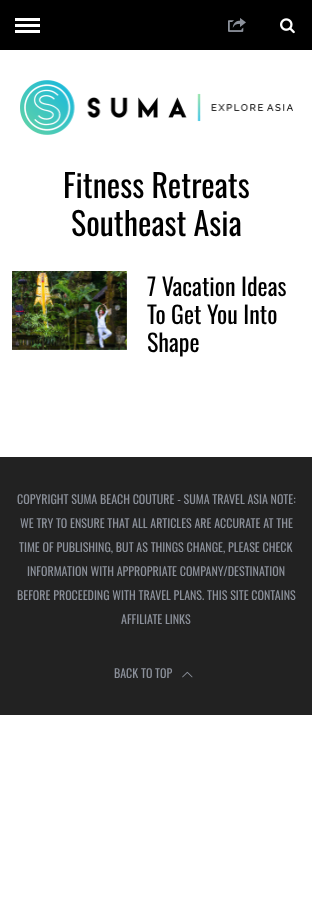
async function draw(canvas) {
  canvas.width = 312;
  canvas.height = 903;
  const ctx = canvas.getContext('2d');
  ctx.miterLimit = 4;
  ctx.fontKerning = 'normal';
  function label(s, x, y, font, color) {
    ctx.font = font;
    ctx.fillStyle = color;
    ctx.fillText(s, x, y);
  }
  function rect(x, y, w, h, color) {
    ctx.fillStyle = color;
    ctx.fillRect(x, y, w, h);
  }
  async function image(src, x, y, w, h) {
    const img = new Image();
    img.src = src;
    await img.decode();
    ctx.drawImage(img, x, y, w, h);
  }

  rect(0, 0, 312, 903, '#fff');
  rect(0, 0, 312, 50, '#000');
  rect(15, 24, 25, 3, '#fff');
  rect(15, 18, 25, 3, '#fff');
  rect(15, 30, 25, 3, '#fff');
  await image('assets/img1.png', 228, 18, 18, 14);
  await image('assets/img2.png', 280, 18, 15, 16);
  await image('assets/img3.png', 20, 80, 273, 55);
  label('Fitness Retreats', 63, 198, '32px Oswald', '#000');
  label('Southeast Asia', 71, 236, '32px Oswald', '#000');
  await image('assets/img4.png', 12, 271, 115, 79);
  label('7 Vacation Ideas', 147, 296, '24px Oswald', '#000');
  label('To Get You Into', 147, 324, '24px Oswald', '#000');
  label('Shape', 147, 352, '24px Oswald', '#000');
  rect(0, 457, 312, 258, '#222');
  label('COPYRIGHT SUMA BEACH COUTURE - SUMA TRAVEL ASIA NOTE:', 17, 504, '12px Oswald', '#8c919b');
  label('WE TRY TO ENSURE THAT ALL ARTICLES ARE ACCURATE AT THE', 20, 528, '12px Oswald', '#8c919b');
  label('TIME OF PUBLISHING, BUT AS THINGS CHANGE, PLEASE CHECK', 19, 552, '12px Oswald', '#8c919b');
  label('INFORMATION WITH APPROPRIATE COMPANY/DESTINATION', 27, 576, '12px Oswald', '#8c919b');
  label('BEFORE PROCEEDING WITH TRAVEL PLANS. THIS SITE CONTAINS', 17, 600, '12px Oswald', '#8c919b');
  label('AFFILIATE LINKS', 121, 624, '12px Oswald', '#8c919b');
  label('BACK TO TOP', 114, 678, '12px Oswald', '#8c919b');
  await image('assets/img5.png', 182, 671, 11, 7);
}

draw(document.querySelector('canvas'));
